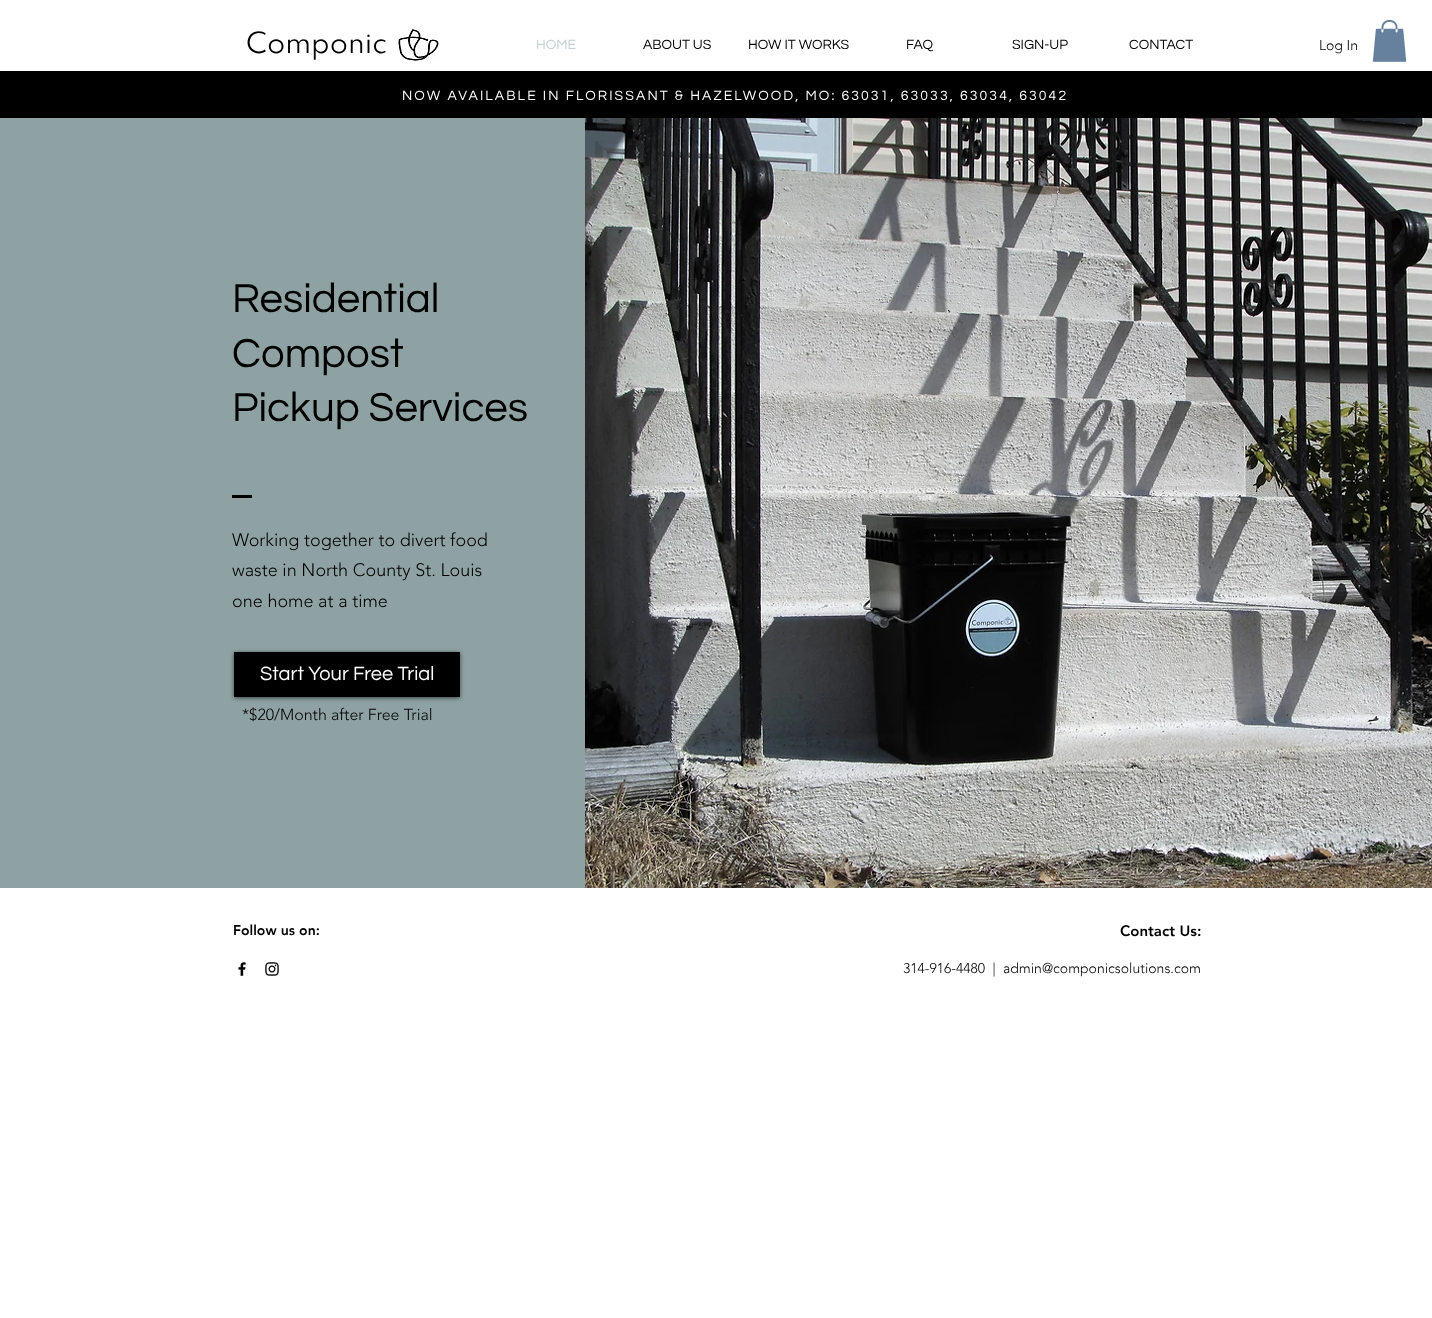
async function draw(canvas) {
  canvas.width = 1432;
  canvas.height = 1318;
  const ctx = canvas.getContext('2d');
  ctx.miterLimit = 4;
  ctx.fontKerning = 'normal';
  function label(s, x, y, font, color) {
    ctx.font = font;
    ctx.fillStyle = color;
    ctx.fillText(s, x, y);
  }
  function rect(x, y, w, h, color) {
    ctx.fillStyle = color;
    ctx.fillRect(x, y, w, h);
  }
  async function image(src, x, y, w, h) {
    const img = new Image();
    img.src = src;
    await img.decode();
    ctx.drawImage(img, x, y, w, h);
  }

  rect(0, 0, 1432, 1318, '#fff');
  label('Componic', 246, 53, '26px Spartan', '#000');
  await image('assets/img1.png', 396, 28, 44, 35);
  label('HOME', 536, 49, '14px Questrial', '#c4d0d1');
  label('ABOUT US', 643, 49, '14px Questrial', '#000');
  label('HOW IT WORKS', 748, 49, '14px Questrial', '#000');
  label('FAQ', 906, 49, '14px Questrial', '#000');
  label('SIGN-UP', 1012, 49, '14px Questrial', '#000');
  label('CONTACT', 1129, 49, '14px Questrial', '#000');
  label('Log In', 1319, 50, '300 14px "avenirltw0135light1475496"', '#000');
  await image('assets/img2.png', 1372, 20, 35, 42);
  rect(0, 71, 1432, 47, '#000');
  ctx.letterSpacing = '2.1px';
  label('NOW AVAILABLE IN FLORISSANT & HAZELWOOD, MO: 63031, 63033, 63034, 63042', 402, 100, '14px "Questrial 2"', '#fff');
  rect(0, 118, 585, 770, '#8fa2a3');
  ctx.letterSpacing = '0px';
  label('Residential', 232, 312, '42px "Questrial 2"', '#000');
  label('Compost', 232, 367, '42px "Questrial 2"', '#000');
  label('Pickup Services', 232, 421, '42px "Questrial 2"', '#000');
  await image('assets/img3.png', 585, 118, 847, 770);
  rect(232, 495, 20, 3, '#000');
  label('Working together to divert food', 232, 546, '300 18px "avenirltw0135light1475496"', '#000');
  label('waste in North County St. Louis', 232, 576, '300 18px "avenirltw0135light1475496"', '#000');
  label('one home at a time', 232, 607, '300 18px "avenirltw0135light1475496"', '#000');
  ctx.fillStyle = '#00000099';
  ctx.filter = 'blur(2px)';
  ctx.beginPath();
  ctx.rect(234, 653, 226, 45);
  ctx.fill();
  ctx.filter = 'none';
  rect(234, 652, 226, 45, '#000');
  label('Start Your Free Trial', 260, 680, '20px Questrial', '#fff');
  label('*$20/Month after Free Trial', 242, 720, '300 16px "avenirltw0135light1475496"', '#000');
  label('Follow us on:', 233, 935, '900 14px "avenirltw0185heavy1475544"', '#000');
  label('Contact Us:', 1120, 936, '900 15px "avenirltw0185heavy1475544"', '#000');
  await image('assets/img4.png', 238, 962, 8, 14);
  await image('assets/img5.png', 265, 962, 14, 14);
  label('314-916-4480  |', 903, 973, '300 14px "avenirltw0135light1475496"', '#000');
  label('admin@componicsolutions.com', 1003, 973, '300 14px "avenirltw0135light1475496"', '#000');
}

draw(document.querySelector('canvas'));
